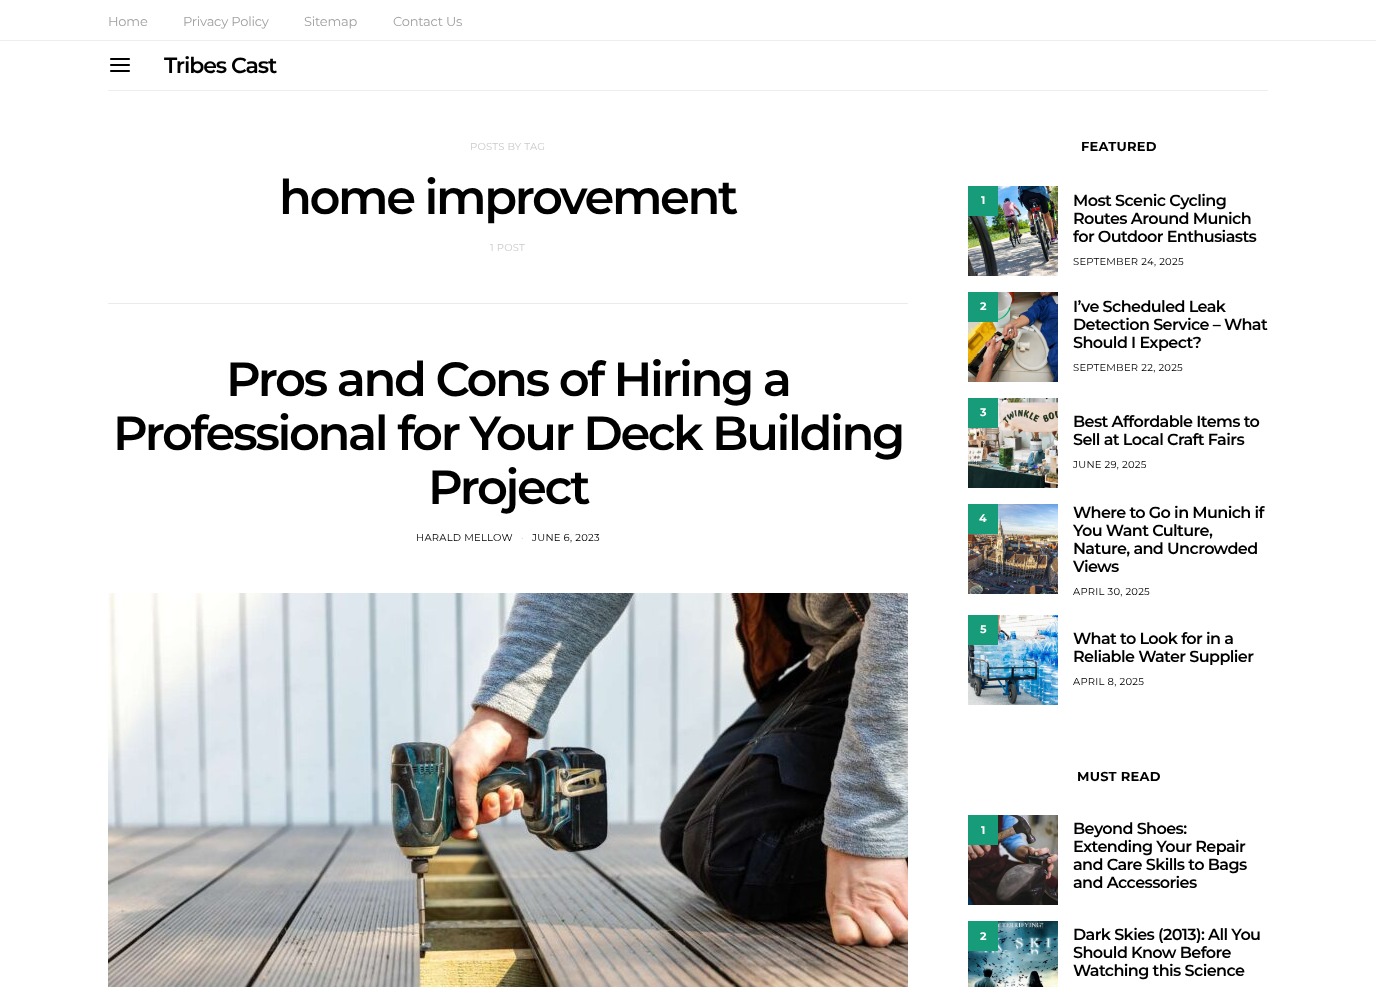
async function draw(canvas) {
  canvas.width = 1376;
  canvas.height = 987;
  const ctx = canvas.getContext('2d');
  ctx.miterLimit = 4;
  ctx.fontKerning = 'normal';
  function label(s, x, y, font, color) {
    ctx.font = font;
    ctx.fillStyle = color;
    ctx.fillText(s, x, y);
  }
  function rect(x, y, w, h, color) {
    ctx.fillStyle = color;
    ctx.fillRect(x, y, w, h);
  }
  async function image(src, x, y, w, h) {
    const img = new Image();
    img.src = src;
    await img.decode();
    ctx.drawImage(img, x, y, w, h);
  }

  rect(0, 0, 1376, 987, '#fff');
  rect(0, 40, 1376, 1, '#eee');
  ctx.letterSpacing = '-0.2px';
  label('Home', 108, 26, '13px Montserrat', '#a0a0a0');
  label('Privacy Policy', 183, 26, '13px Montserrat', '#a0a0a0');
  label('Sitemap', 304, 26, '13px Montserrat', '#a0a0a0');
  label('Contact Us', 393, 26, '13px Montserrat', '#a0a0a0');
  rect(108, 90, 1160, 1, '#eee');
  await image('assets/img1.png', 110, 58, 20, 14);
  ctx.letterSpacing = '-1.1px';
  label('Tribes Cast', 164, 73, '600 22px Montserrat', '#000');
  ctx.letterSpacing = '0.25px';
  label('POSTS BY TAG', 470, 150, '10px Montserrat', '#c9c9c9');
  ctx.letterSpacing = '-2.4px';
  label('home improvement', 279, 214, '600 48px Montserrat', '#000');
  ctx.letterSpacing = '0.25px';
  label('1 POST', 490, 251, '10px Montserrat', '#c9c9c9');
  rect(108, 303, 800, 1, '#e9ecef');
  ctx.letterSpacing = '-2.4px';
  label('Pros and Cons of Hiring a', 226, 396, '600 48px Montserrat', '#000');
  label('Professional for Your Deck Building', 113, 450, '600 48px Montserrat', '#000');
  label('Project', 428, 504, '600 48px Montserrat', '#000');
  ctx.letterSpacing = '0.25px';
  label('HARALD MELLOW', 416, 541, '10px Montserrat', '#000');
  label('·', 521, 541, '10px Montserrat', '#c9c9c9');
  label('JUNE 6, 2023', 532, 541, '10px Montserrat', '#000');
  await image('assets/img2.png', 108, 593, 800, 394);
  label('FEATURED', 1081, 151, 'bold 13px Montserrat', '#000');
  await image('assets/img3.png', 968, 186, 90, 90);
  rect(968, 186, 30, 30, '#169c78');
  ctx.letterSpacing = '0px';
  label('1', 981, 204, 'bold 11px Montserrat', '#fff');
  ctx.letterSpacing = '-0.6px';
  label('Most Scenic Cycling', 1073, 206, '600 16px Montserrat', '#000');
  label('Routes Around Munich', 1073, 224, '600 16px Montserrat', '#000');
  label('for Outdoor Enthusiasts', 1073, 242, '600 16px Montserrat', '#000');
  ctx.letterSpacing = '0.25px';
  label('SEPTEMBER 24, 2025', 1073, 265, '10px Montserrat', '#000');
  await image('assets/img4.png', 968, 292, 90, 90);
  rect(968, 292, 30, 30, '#169c78');
  ctx.letterSpacing = '0px';
  label('2', 980, 310, 'bold 11px Montserrat', '#fff');
  ctx.letterSpacing = '-0.6px';
  label('I’ve Scheduled Leak', 1073, 312, '600 16px Montserrat', '#000');
  label('Detection Service – What', 1073, 330, '600 16px Montserrat', '#000');
  label('Should I Expect?', 1073, 348, '600 16px Montserrat', '#000');
  ctx.letterSpacing = '0.25px';
  label('SEPTEMBER 22, 2025', 1073, 371, '10px Montserrat', '#000');
  await image('assets/img5.png', 968, 398, 90, 90);
  rect(968, 398, 30, 30, '#169c78');
  ctx.letterSpacing = '0px';
  label('3', 980, 416, 'bold 11px Montserrat', '#fff');
  ctx.letterSpacing = '-0.6px';
  label('Best Affordable Items to', 1073, 427, '600 16px Montserrat', '#000');
  label('Sell at Local Craft Fairs', 1073, 445, '600 16px Montserrat', '#000');
  ctx.letterSpacing = '0.25px';
  label('JUNE 29, 2025', 1073, 468, '10px Montserrat', '#000');
  await image('assets/img6.png', 968, 504, 90, 90);
  rect(968, 504, 30, 30, '#169c78');
  ctx.letterSpacing = '0px';
  label('4', 979, 522, 'bold 11px Montserrat', '#fff');
  ctx.letterSpacing = '-0.6px';
  label('Where to Go in Munich if', 1073, 518, '600 16px Montserrat', '#000');
  label('You Want Culture,', 1073, 536, '600 16px Montserrat', '#000');
  label('Nature, and Uncrowded', 1073, 554, '600 16px Montserrat', '#000');
  label('Views', 1073, 572, '600 16px Montserrat', '#000');
  ctx.letterSpacing = '0.25px';
  label('APRIL 30, 2025', 1073, 595, '10px Montserrat', '#000');
  await image('assets/img7.png', 968, 615, 90, 90);
  rect(968, 615, 30, 30, '#169c78');
  ctx.letterSpacing = '0px';
  label('5', 980, 633, 'bold 11px Montserrat', '#fff');
  ctx.letterSpacing = '-0.6px';
  label('What to Look for in a', 1073, 644, '600 16px Montserrat', '#000');
  label('Reliable Water Supplier', 1073, 662, '600 16px Montserrat', '#000');
  ctx.letterSpacing = '0.25px';
  label('APRIL 8, 2025', 1073, 685, '10px Montserrat', '#000');
  label('MUST READ', 1077, 781, 'bold 13px Montserrat', '#000');
  await image('assets/img8.png', 968, 815, 90, 90);
  rect(968, 815, 30, 30, '#169c78');
  ctx.letterSpacing = '0px';
  label('1', 981, 834, 'bold 11px Montserrat', '#fff');
  ctx.letterSpacing = '-0.6px';
  label('Beyond Shoes:', 1073, 834, '600 16px Montserrat', '#000');
  label('Extending Your Repair', 1073, 852, '600 16px Montserrat', '#000');
  label('and Care Skills to Bags', 1073, 870, '600 16px Montserrat', '#000');
  label('and Accessories', 1073, 888, '600 16px Montserrat', '#000');
  await image('assets/img9.png', 968, 921, 90, 66);
  rect(968, 921, 30, 30, '#169c78');
  ctx.letterSpacing = '0px';
  label('2', 980, 940, 'bold 11px Montserrat', '#fff');
  ctx.letterSpacing = '-0.6px';
  label('Dark Skies (2013): All You', 1073, 940, '600 16px Montserrat', '#000');
  label('Should Know Before', 1073, 958, '600 16px Montserrat', '#000');
  label('Watching this Science', 1073, 976, '600 16px Montserrat', '#000');
}

draw(document.querySelector('canvas'));
